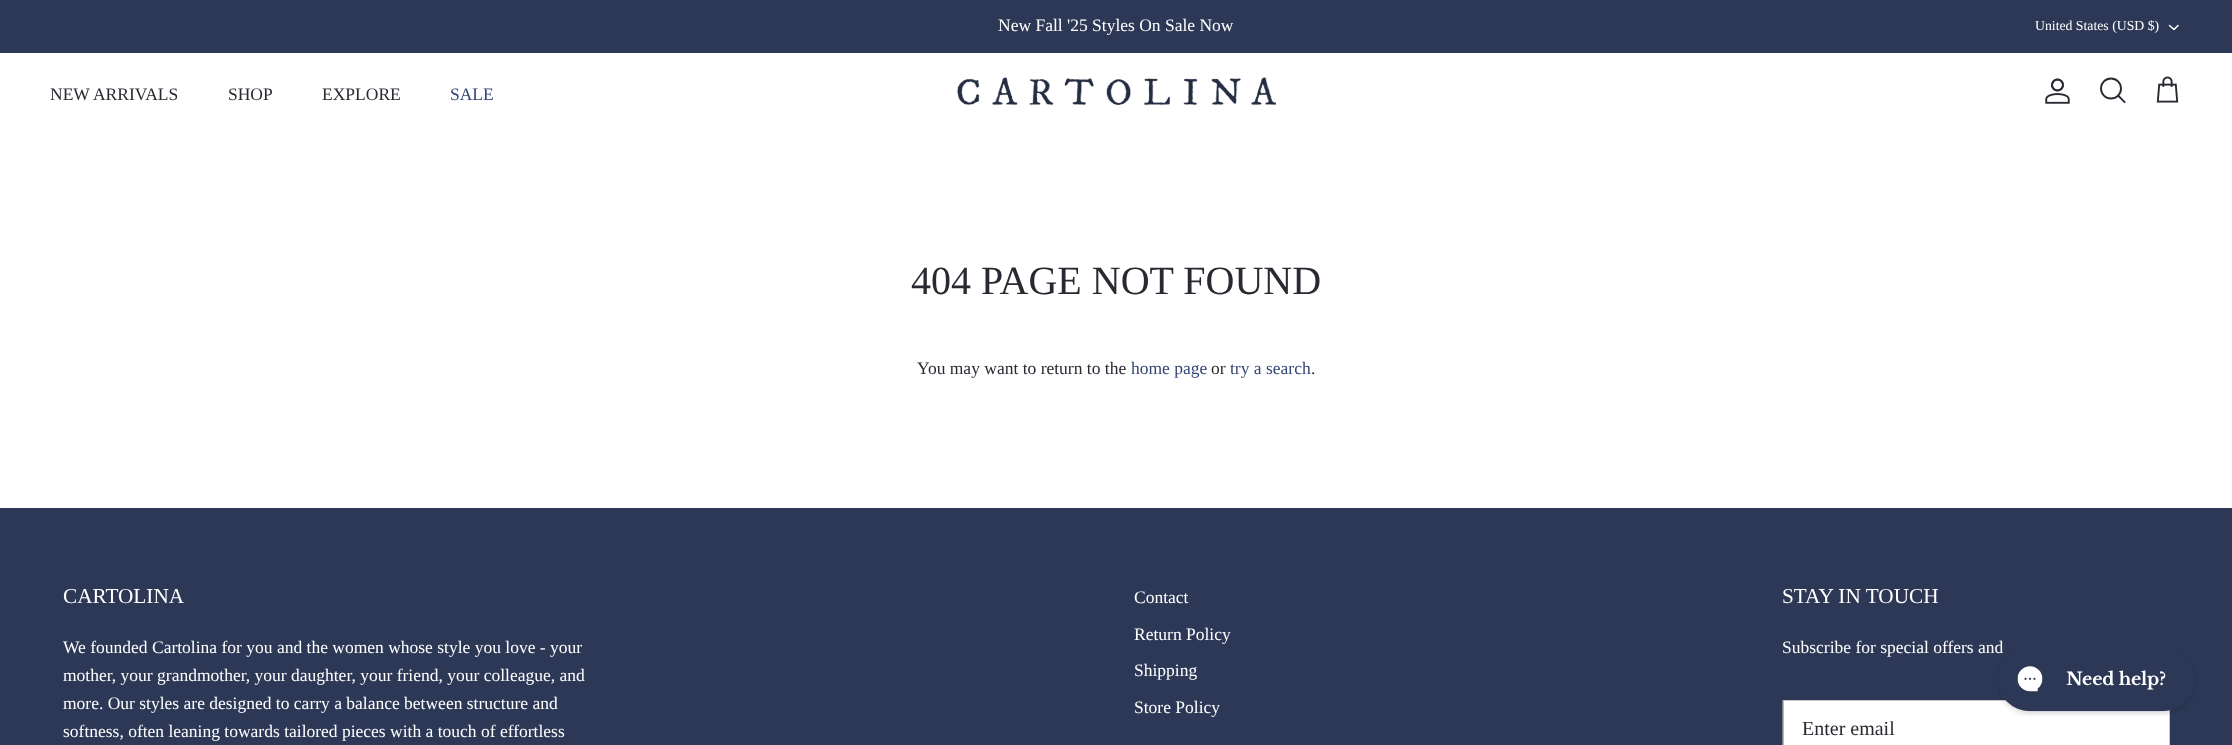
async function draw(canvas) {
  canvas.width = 2232;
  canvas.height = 745;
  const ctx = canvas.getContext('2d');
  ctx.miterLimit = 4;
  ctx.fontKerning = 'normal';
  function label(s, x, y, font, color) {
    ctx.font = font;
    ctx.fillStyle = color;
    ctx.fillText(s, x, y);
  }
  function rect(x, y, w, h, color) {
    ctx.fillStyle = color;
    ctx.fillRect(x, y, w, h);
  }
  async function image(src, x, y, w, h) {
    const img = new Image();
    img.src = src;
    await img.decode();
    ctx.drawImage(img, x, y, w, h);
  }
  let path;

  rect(0, 0, 2232, 745, '#fff');
  rect(0, 0, 2232, 53, '#2c3856');
  label('New Fall \'25 Styles On Sale Now', 998, 31, '17.5px Liberation Serif', '#fff');
  label('United States (USD $)', 2035, 30, '13.75px Liberation Serif', '#fff');
  path = new Path2D('M2169.5 25.5L2174 29.5L2178 25.5');
  ctx.strokeStyle = '#fff';
  ctx.lineWidth = 1.5;
  ctx.lineCap = 'round';
  ctx.lineJoin = 'round';
  ctx.stroke(path);
  label('NEW ARRIVALS', 50, 100, '17.5px Liberation Serif', '#292931');
  label('SHOP', 228, 100, '17.5px Liberation Serif', '#292931');
  label('EXPLORE', 322, 100, '17.5px Liberation Serif', '#292931');
  label('SALE', 450, 100, '17.5px Liberation Serif', '#334674');
  await image('assets/img1.png', 957, 77, 319, 29);
  await image('assets/img2.png', 2045, 78, 25, 26);
  ctx.beginPath();
  ctx.arc(2111, 88.5, 10, 0, 2 * Math.PI);
  ctx.strokeStyle = '#292931';
  ctx.lineWidth = 1.9;
  ctx.stroke();
  path = new Path2D('M2118.5 96L2124.5 102');
  ctx.lineCap = 'square';
  ctx.lineJoin = 'miter';
  ctx.stroke(path);
  await image('assets/img3.png', 2156, 76, 23, 27);
  label('404 PAGE NOT FOUND', 911, 294, '40px Liberation Serif', '#292931');
  label('You may want to return to the', 917, 374, '17.5px Liberation Serif', '#292931');
  label('home page', 1131, 374, '17.5px Liberation Serif', '#334674');
  label('or', 1211, 374, '17.5px Liberation Serif', '#292931');
  label('try a search', 1230, 374, '17.5px Liberation Serif', '#334674');
  label('.', 1311, 374, '17.5px Liberation Serif', '#292931');
  rect(0, 508, 2232, 237, '#2c3856');
  label('CARTOLINA', 63, 603, '21.25px Liberation Serif', '#fff');
  label('We founded Cartolina for you and the women whose style you love - your', 63, 653, '17.5px Liberation Serif', '#fff');
  label('mother, your grandmother, your daughter, your friend, your colleague, and', 63, 681, '17.5px Liberation Serif', '#fff');
  label('more. Our styles are designed to carry a balance between structure and', 63, 709, '17.5px Liberation Serif', '#fff');
  label('softness, often leaning towards tailored pieces with a touch of effortless', 63, 737, '17.5px Liberation Serif', '#fff');
  label('Contact', 1134, 603, '17.5px Liberation Serif', '#fff');
  label('Return Policy', 1134, 640, '17.5px Liberation Serif', '#fff');
  label('Shipping', 1134, 676, '17.5px Liberation Serif', '#fff');
  label('Store Policy', 1134, 713, '17.5px Liberation Serif', '#fff');
  label('STAY IN TOUCH', 1782, 603, '21.25px Liberation Serif', '#fff');
  label('Subscribe for special offers and', 1782, 653, '17.5px Liberation Serif', '#fff');
  ctx.beginPath();
  ctx.rect(1783.5, 700.5, 386, 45);
  ctx.fill();
  ctx.strokeStyle = '#cacacc';
  ctx.lineWidth = 1;
  ctx.stroke();
  label('Enter email', 1802, 735, '20px Liberation Serif', '#292931');
  await image('assets/img4.png', 1997, 646, 199, 70);
}

draw(document.querySelector('canvas'));
